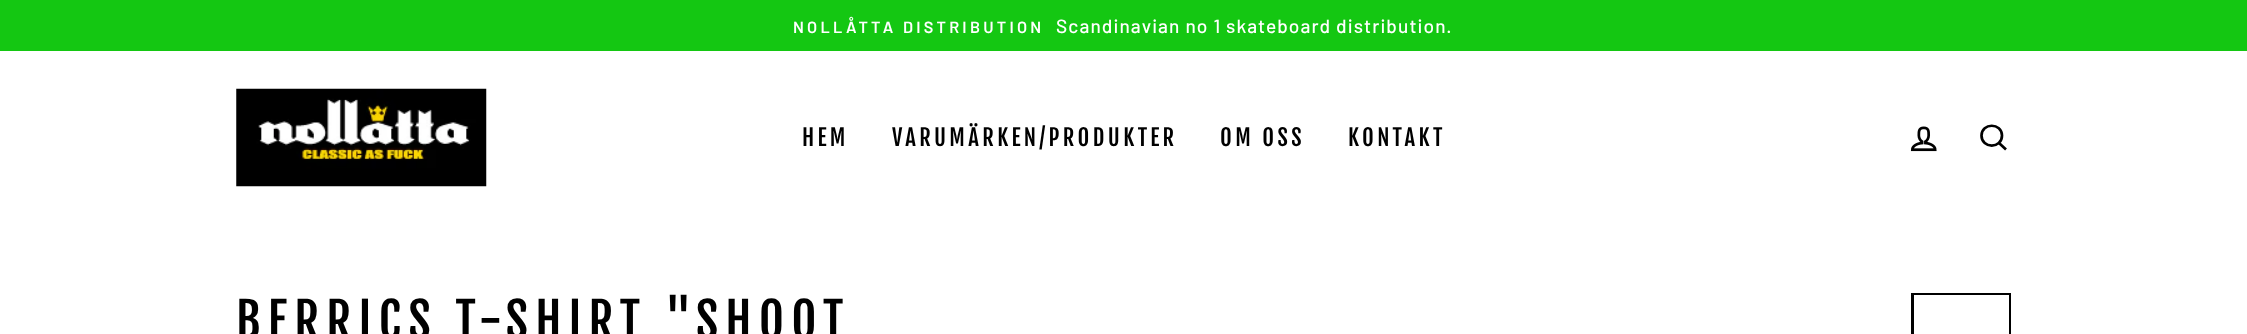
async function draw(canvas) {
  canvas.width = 2247;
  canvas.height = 334;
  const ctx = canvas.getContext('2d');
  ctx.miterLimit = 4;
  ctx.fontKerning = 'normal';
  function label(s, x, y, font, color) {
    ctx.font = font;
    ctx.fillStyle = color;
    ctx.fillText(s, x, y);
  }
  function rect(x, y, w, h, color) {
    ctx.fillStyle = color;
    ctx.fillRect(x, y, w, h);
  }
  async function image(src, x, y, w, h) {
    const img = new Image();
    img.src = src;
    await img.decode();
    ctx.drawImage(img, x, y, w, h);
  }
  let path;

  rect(0, 0, 2247, 334, '#fff');
  rect(0, 0, 2247, 51, '#14c712');
  ctx.letterSpacing = '3.25px';
  label('NOLLÅTTA DISTRIBUTION', 793, 33, '600 16.25px Barlow', '#fff');
  ctx.letterSpacing = '1.1px';
  label('Scandinavian no 1 skateboard distribution.', 1056, 33, '500 19.1px Barlow', '#fff');
  ctx.fillStyle = '#00000033';
  ctx.filter = 'blur(0.5px)';
  ctx.beginPath();
  ctx.rect(0, 51, 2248, 173);
  ctx.fill();
  ctx.filter = 'none';
  rect(0, 51, 2247, 173, '#fff');
  await image('assets/img1.png', 236, 88, 251, 99);
  ctx.letterSpacing = '3.4px';
  label('HEM', 802, 146, '22.5px Fjalla One', '#000');
  label('VARUMÄRKEN/PRODUKTER', 892, 146, '22.5px Fjalla One', '#000');
  label('OM OSS', 1220, 146, '22.5px Fjalla One', '#000');
  label('KONTAKT', 1348, 146, '22.5px Fjalla One', '#000');
  await image('assets/img2.png', 1910, 126, 27, 26);
  path = new Path2D('M2002 135.5C2002 149 1981.5 149 1981.5 135.5C1981.5 122.5 2002 122.5 2002 135.5ZM2006 149.5L1999 143');
  ctx.strokeStyle = '#000';
  ctx.lineWidth = 2.7;
  ctx.stroke(path);
  ctx.letterSpacing = '7.25px';
  label('BERRICS T-SHIRT "SHOOT', 236, 339, '48.4px Fjalla One', '#000');
  ctx.lineWidth = 3;
  ctx.strokeRect(1912.5, 294.5, 97, 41);
  rect(1914, 295, 95, 39, '#fff');
}

draw(document.querySelector('canvas'));
